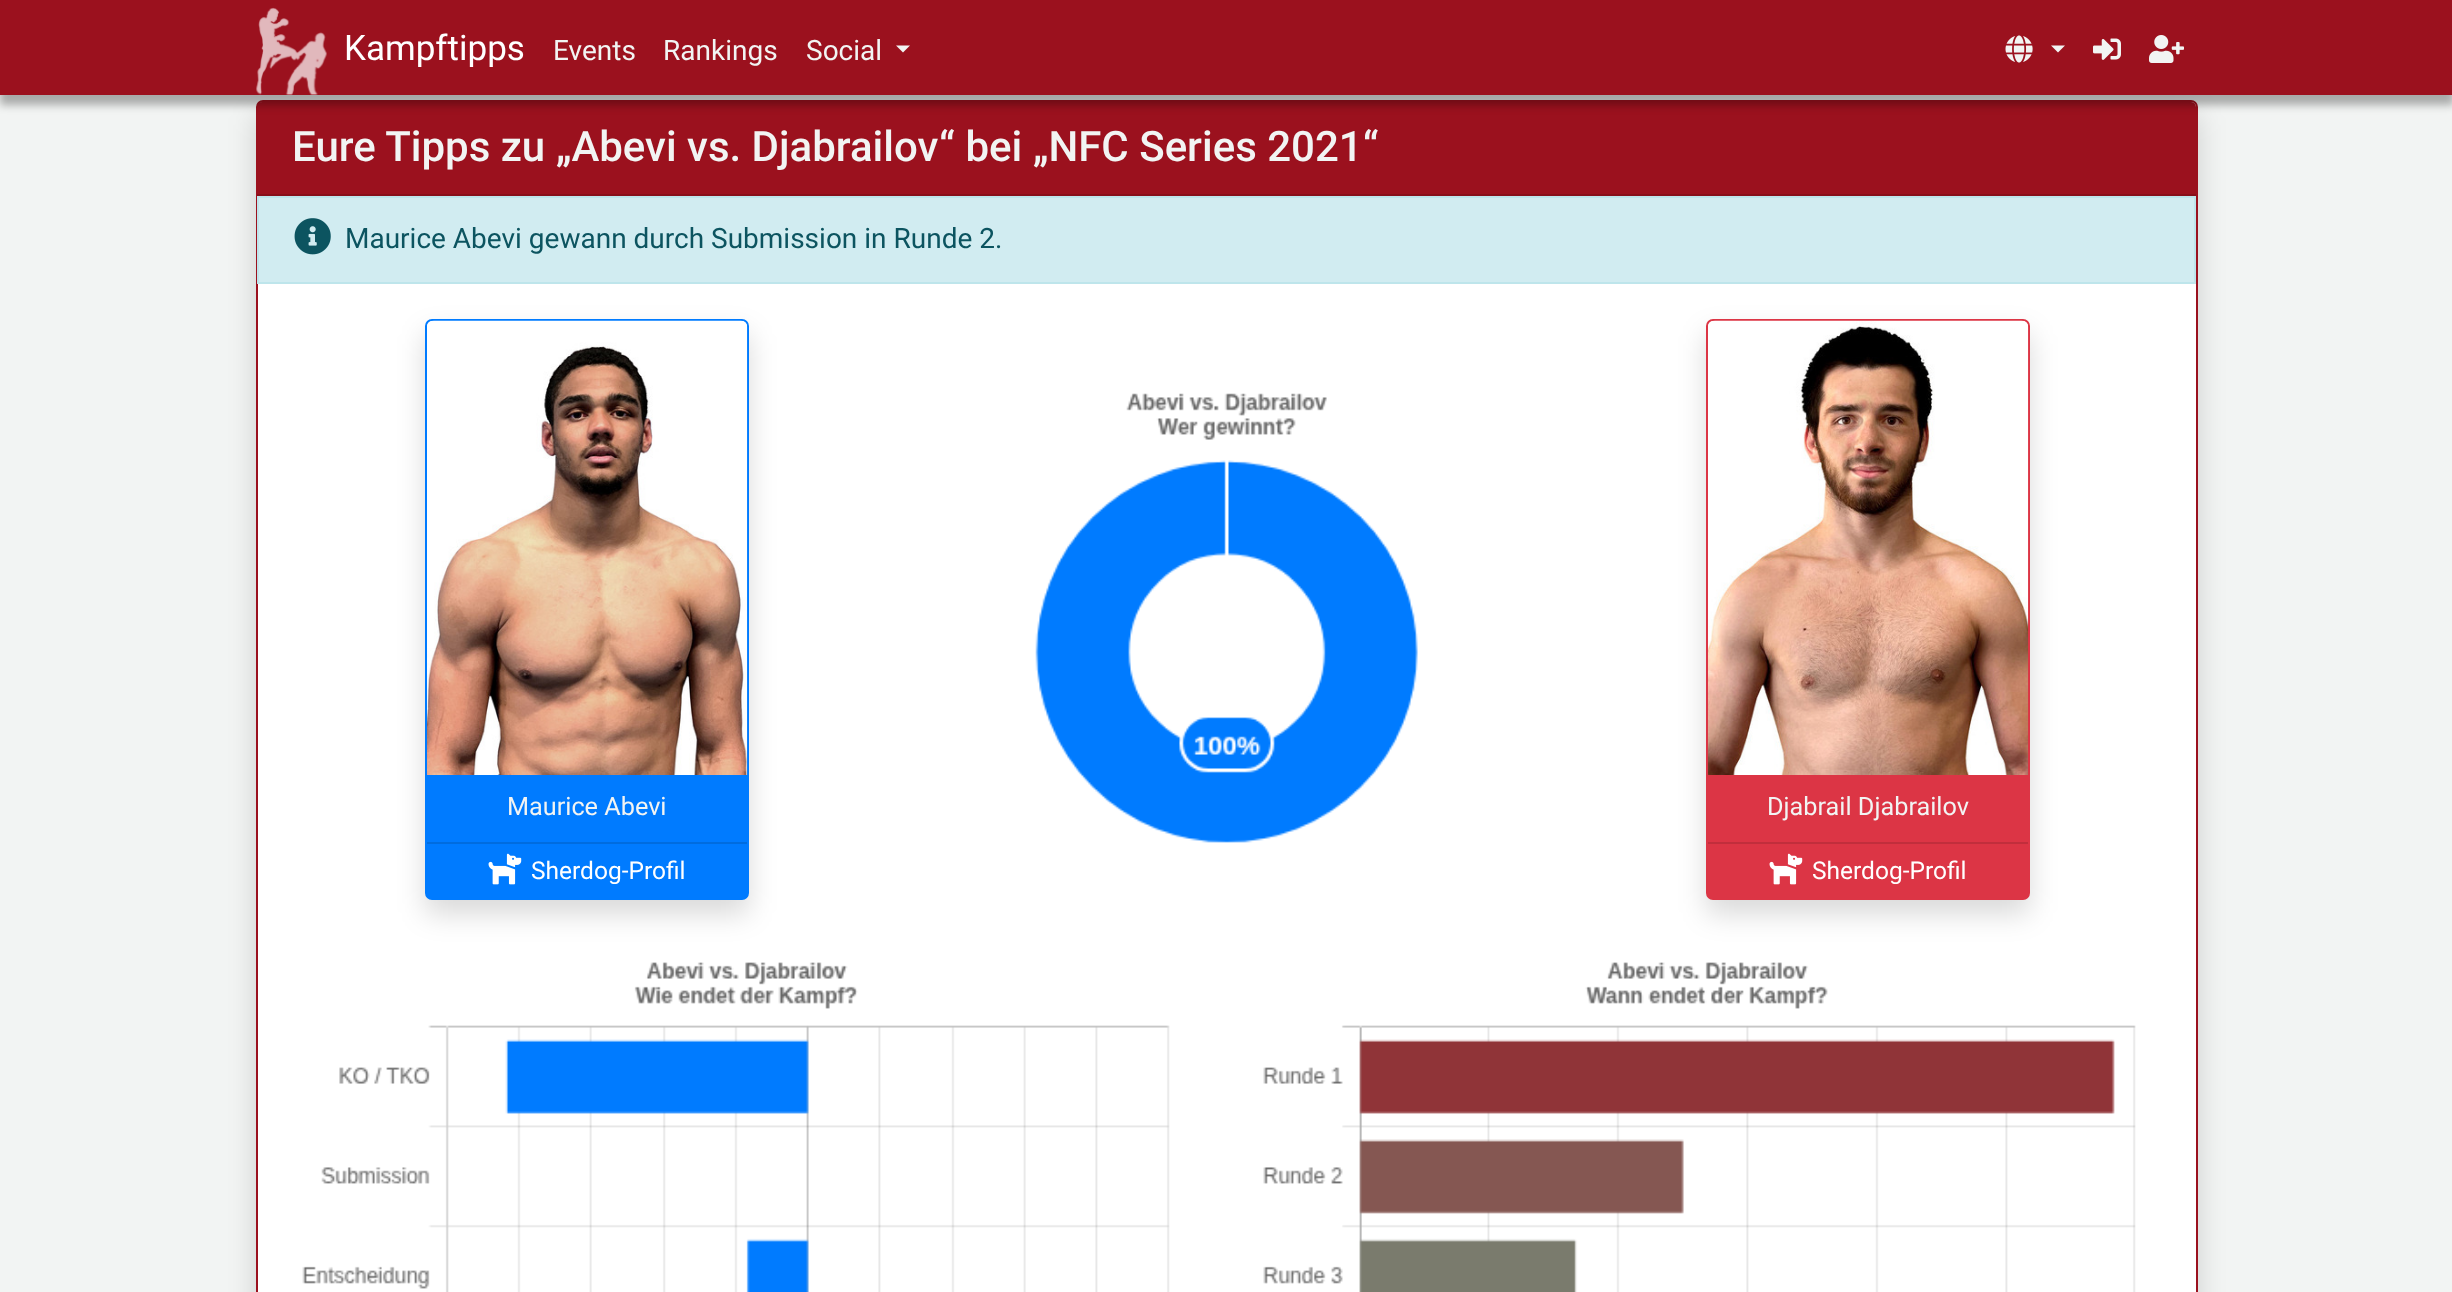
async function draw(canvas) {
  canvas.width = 2452;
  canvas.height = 1292;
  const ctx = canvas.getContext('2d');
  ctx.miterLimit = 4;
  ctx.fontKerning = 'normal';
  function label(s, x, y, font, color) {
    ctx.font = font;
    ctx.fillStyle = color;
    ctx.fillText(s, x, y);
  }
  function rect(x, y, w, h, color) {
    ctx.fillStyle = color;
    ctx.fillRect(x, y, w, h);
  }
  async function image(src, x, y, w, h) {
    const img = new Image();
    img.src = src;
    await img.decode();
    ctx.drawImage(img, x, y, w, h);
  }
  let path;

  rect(0, 0, 2452, 1292, '#f2f4f3');
  ctx.fillStyle = '#00000026';
  ctx.filter = 'blur(14px)';
  ctx.beginPath();
  ctx.roundRect(256, 114, 1942, 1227, 7);
  ctx.fill();
  ctx.filter = 'none';
  ctx.fillStyle = '#fff';
  ctx.beginPath();
  ctx.roundRect(257, 101, 1940, 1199, 6);
  ctx.fill();
  ctx.strokeStyle = '#9b111e';
  ctx.lineWidth = 2;
  ctx.stroke();
  ctx.fillStyle = '#9b111e';
  ctx.beginPath();
  ctx.roundRect(257, 102, 1939, 94, [5, 5, 0, 0]);
  ctx.fill();
  ctx.fillStyle = '#0000004d';
  ctx.filter = 'blur(4.5px)';
  ctx.beginPath();
  ctx.rect(0, 11, 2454, 94);
  ctx.fill();
  ctx.filter = 'none';
  rect(0, 0, 2452, 95, '#9b111e');
  await image('assets/img1.png', 256, 7, 71, 88);
  label('Kampftipps', 344, 60, '35px Roboto', '#fff');
  label('Events', 553, 60, '28px Roboto', '#f2f4f3');
  label('Rankings', 663, 60, '28px Roboto', '#f2f4f3');
  label('Social', 806, 60, '28px Roboto', '#f2f4f3');
  path = new Path2D('M896 45.5H910L903 52.5Z');
  ctx.fill(path);
  await image('assets/img2.png', 2005, 35, 28, 28);
  path = new Path2D('M2051 45.5H2065L2058 52.5Z');
  ctx.fill(path);
  await image('assets/img3.png', 2093, 38, 28, 22);
  await image('assets/img4.png', 2149, 35, 35, 28);
  rect(257, 194, 1939, 2, '#880f1a');
  label('Eure Tipps zu „Abevi vs. Djabrailov', 292, 161, '500 42px Roboto', '#f2f4f3');
  label('“ bei „NFC Series 2021“', 939, 161, '500 42px Roboto', '#f2f4f3');
  ctx.fillStyle = '#d1ecf1';
  ctx.beginPath();
  ctx.rect(258, 197, 1937, 86);
  ctx.fill();
  ctx.strokeStyle = '#bee5eb';
  ctx.stroke();
  await image('assets/img5.png', 294, 218, 37, 37);
  label('Maurice Abevi gewann durch Submission in Runde 2.', 345, 248, '28px Roboto', '#0c5460');
  ctx.fillStyle = '#00000026';
  ctx.filter = 'blur(14px)';
  ctx.beginPath();
  ctx.roundRect(425, 333, 324, 581, 7);
  ctx.fill();
  ctx.filter = 'none';
  ctx.fillStyle = '#fff';
  ctx.beginPath();
  ctx.roundRect(426, 320, 322, 579, 6);
  ctx.fill();
  ctx.strokeStyle = '#007bff';
  ctx.stroke();
  await image('assets/img6.png', 427, 320, 321, 455);
  rect(427, 775, 320, 67, '#007bff');
  rect(427, 842, 320, 2, '#006cdf');
  label('Maurice Abevi', 507, 815, '25.25px Roboto', '#f2f4f3');
  rect(427, 844, 320, 54, '#007bff');
  await image('assets/img7.png', 488, 853, 34, 32);
  label('Sherdog-Profil', 531, 879, '24.5px Roboto', '#fff');
  await image('assets/img8.png', 1035, 393, 383, 450);
  ctx.fillStyle = '#00000026';
  ctx.filter = 'blur(14px)';
  ctx.beginPath();
  ctx.roundRect(1706, 333, 324, 581, 7);
  ctx.fill();
  ctx.filter = 'none';
  ctx.fillStyle = '#fff';
  ctx.beginPath();
  ctx.roundRect(1707, 320, 322, 579, 6);
  ctx.fill();
  ctx.strokeStyle = '#dc3545';
  ctx.stroke();
  await image('assets/img9.png', 1708, 320, 321, 455);
  rect(1708, 775, 320, 67, '#dc3545');
  rect(1708, 842, 320, 2, '#c12e3c');
  label('Djabrail Djabrailov', 1767, 815, '25.25px Roboto', '#f2f4f3');
  rect(1708, 844, 320, 54, '#dc3545');
  await image('assets/img10.png', 1769, 853, 34, 32);
  label('Sherdog-Profil', 1812, 879, '24.5px Roboto', '#fff');
  await image('assets/img11.png', 302, 962, 868, 330);
  await image('assets/img12.png', 1263, 962, 873, 330);
}

draw(document.querySelector('canvas'));
